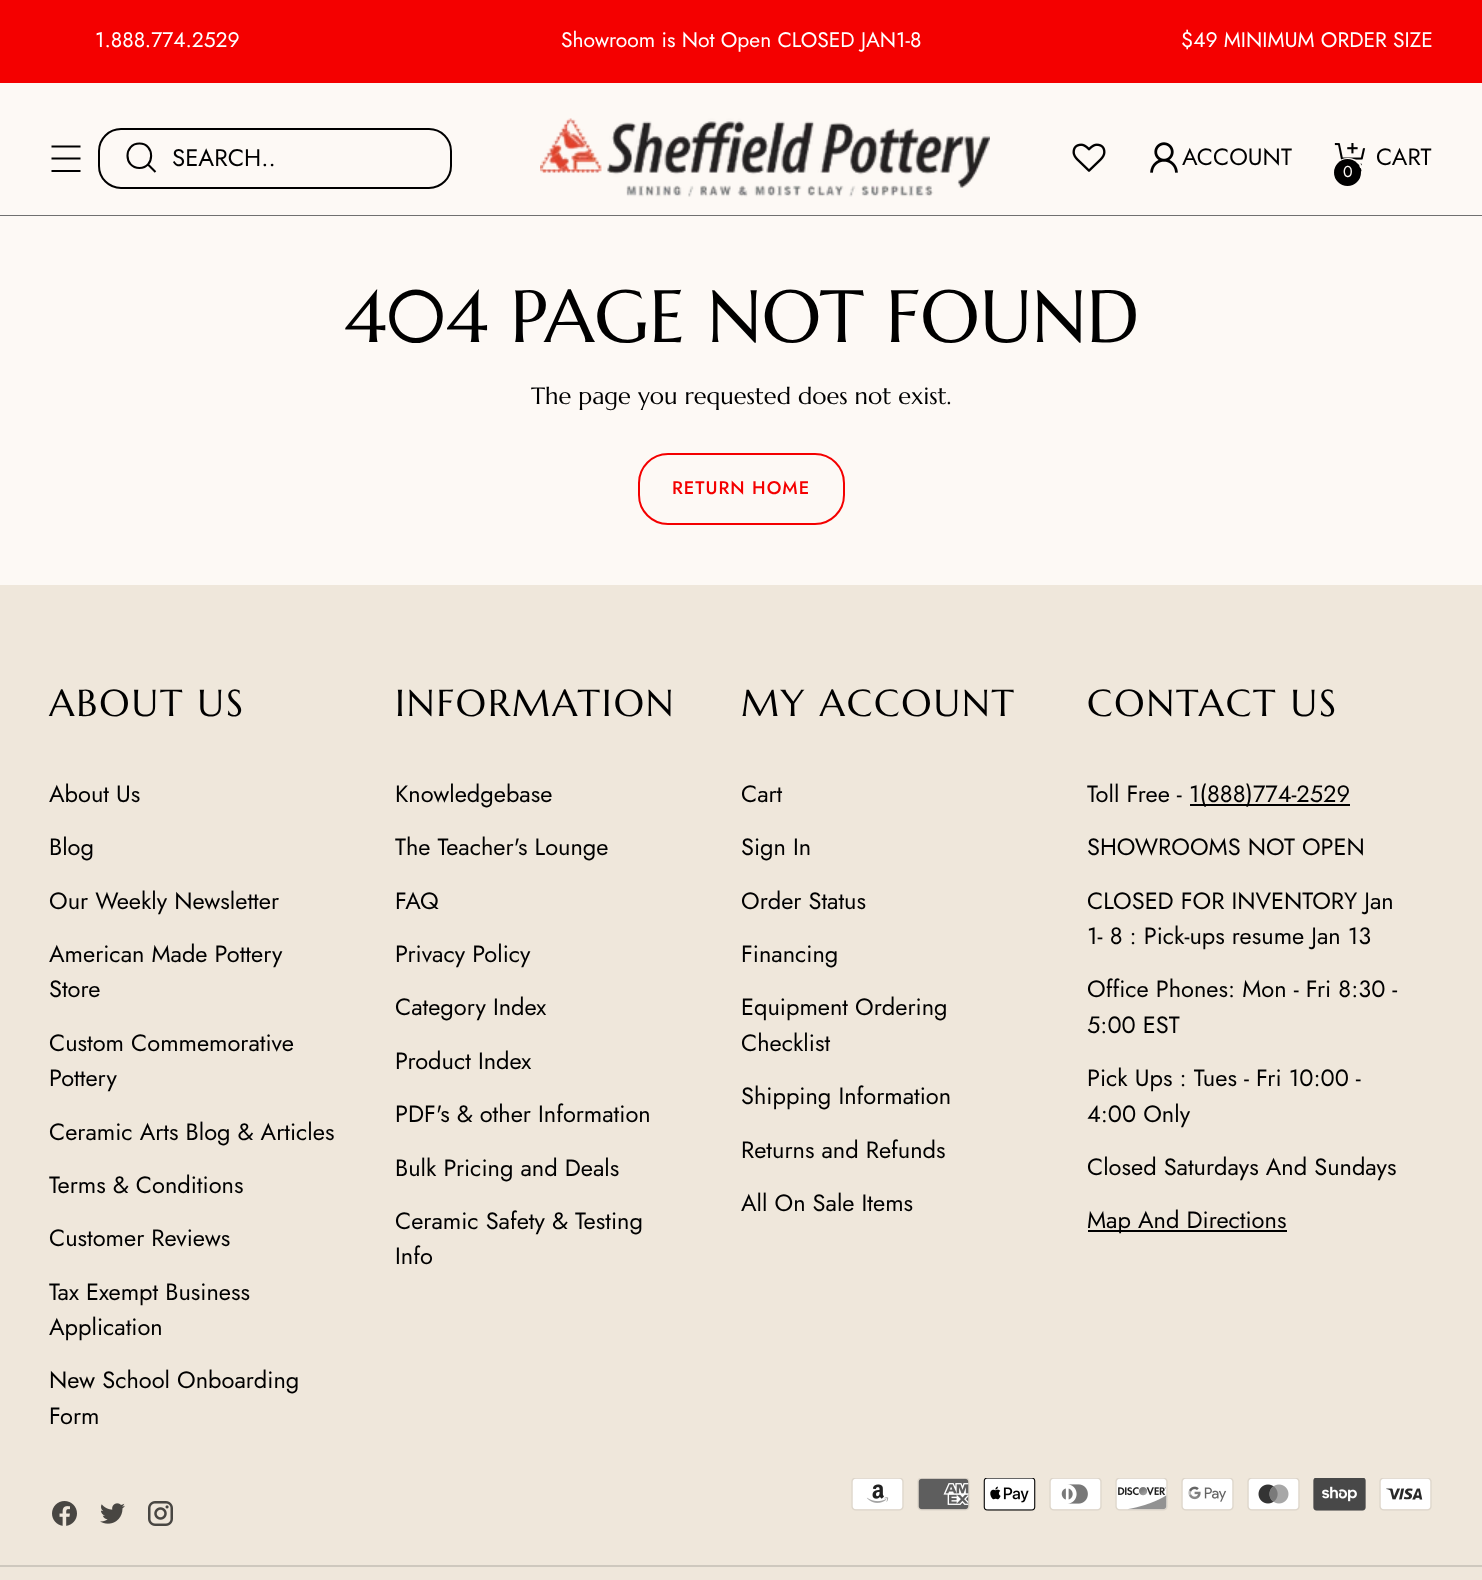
async function draw(canvas) {
  canvas.width = 1482;
  canvas.height = 1580;
  const ctx = canvas.getContext('2d');
  ctx.miterLimit = 4;
  ctx.fontKerning = 'normal';
  function label(s, x, y, font, color) {
    ctx.font = font;
    ctx.fillStyle = color;
    ctx.fillText(s, x, y);
  }
  function rect(x, y, w, h, color) {
    ctx.fillStyle = color;
    ctx.fillRect(x, y, w, h);
  }
  async function image(src, x, y, w, h) {
    const img = new Image();
    img.src = src;
    await img.decode();
    ctx.drawImage(img, x, y, w, h);
  }
  let path;

  rect(0, 0, 1482, 1580, '#fdf9f5');
  rect(0, 0, 1482, 83, '#f40000');
  label('1.888.774.2529', 95, 47, '21px Jost', '#fff');
  label('Showroom is Not Open CLOSED JAN1-8', 561, 47, '21px Jost', '#fff');
  label('$49 MINIMUM ORDER SIZE', 1181, 47, '21px Jost', '#fff');
  rect(0, 215, 1482, 1, '#707070');
  path = new Path2D('M51.5 158.5H80.5M51.5 146.5H80.5M51.5 171H80.5');
  ctx.strokeStyle = '#000';
  ctx.lineWidth = 2.1;
  ctx.stroke(path);
  path = new Path2D('M139.5 168C155 168 155 143.5 139.5 143.5C123.5 143.5 123.5 168 139.5 168ZM148 164.5L155.5 172');
  ctx.stroke(path);
  ctx.beginPath();
  ctx.roundRect(99, 129, 352, 59, 22);
  ctx.lineWidth = 2;
  ctx.stroke();
  label('SEARCH..', 172, 166, '24px Jost', '#000');
  await image('assets/img1.png', 540, 118, 450, 79);
  await image('assets/img2.png', 1072, 143, 34, 29);
  await image('assets/img3.png', 1150, 142, 28, 31);
  label('ACCOUNT', 1182, 165, '23.6px Jost', '#000');
  await image('assets/img4.png', 1334, 143, 32, 29);
  label('CART', 1376, 165, '23.6px Jost', '#000');
  ctx.beginPath();
  ctx.roundRect(1333, 159, 30, 29, 14.5);
  ctx.strokeStyle = '#fdf9f5';
  ctx.stroke();
  ctx.beginPath();
  ctx.arc(1347.5, 172.5, 13.5, 0, 2 * Math.PI);
  ctx.fill();
  label('0', 1343, 177, '16px Jost', '#fdf9f5');
  label('404 PAGE NOT FOUND', 344, 342, '73.75px Marcellus', '#000');
  label('The page you requested does not exist.', 531, 404, '23.6px Marcellus', '#000');
  ctx.beginPath();
  ctx.roundRect(639, 454, 205, 70, 29);
  ctx.strokeStyle = '#f40000';
  ctx.stroke();
  ctx.letterSpacing = '1px';
  label('RETURN HOME', 672, 494, '500 18.25px Jost', '#f40000');
  rect(0, 585, 1482, 995, '#efe7db');
  ctx.letterSpacing = '1.9px';
  label('ABOUT US', 49, 716, '37.5px Marcellus', '#000');
  ctx.letterSpacing = '0px';
  label('About Us', 49, 802, '23.6px Jost', '#000');
  label('Blog', 49, 855, '23.6px Jost', '#000');
  label('Our Weekly Newsletter', 49, 909, '23.6px Jost', '#000');
  label('American Made Pottery', 49, 962, '23.6px Jost', '#000');
  label('Store', 49, 997, '23.6px Jost', '#000');
  label('Custom Commemorative', 49, 1051, '23.6px Jost', '#000');
  label('Pottery', 49, 1086, '23.6px Jost', '#000');
  label('Ceramic Arts Blog & Articles', 49, 1140, '23.6px Jost', '#000');
  label('Terms & Conditions', 49, 1193, '23.6px Jost', '#000');
  label('Customer Reviews', 49, 1246, '23.6px Jost', '#000');
  label('Tax Exempt Business', 49, 1300, '23.6px Jost', '#000');
  label('Application', 49, 1335, '23.6px Jost', '#000');
  label('New School Onboarding', 49, 1388, '23.6px Jost', '#000');
  label('Form', 49, 1424, '23.6px Jost', '#000');
  ctx.letterSpacing = '1.9px';
  label('INFORMATION', 395, 716, '37.5px Marcellus', '#000');
  ctx.letterSpacing = '0px';
  label('Knowledgebase', 395, 802, '23.6px Jost', '#000');
  label('The Teacher\'s Lounge', 395, 855, '23.6px Jost', '#000');
  label('FAQ', 395, 909, '23.6px Jost', '#000');
  label('Privacy Policy', 395, 962, '23.6px Jost', '#000');
  label('Category Index', 395, 1015, '23.6px Jost', '#000');
  label('Product Index', 395, 1069, '23.6px Jost', '#000');
  label('PDF\'s & other Information', 395, 1122, '23.6px Jost', '#000');
  label('Bulk Pricing and Deals', 395, 1176, '23.6px Jost', '#000');
  label('Ceramic Safety & Testing', 395, 1229, '23.6px Jost', '#000');
  label('Info', 395, 1264, '23.6px Jost', '#000');
  ctx.letterSpacing = '1.9px';
  label('MY ACCOUNT', 741, 716, '37.5px Marcellus', '#000');
  ctx.letterSpacing = '0px';
  label('Cart', 741, 802, '23.6px Jost', '#000');
  label('Sign In', 741, 855, '23.6px Jost', '#000');
  label('Order Status', 741, 909, '23.6px Jost', '#000');
  label('Financing', 741, 962, '23.6px Jost', '#000');
  label('Equipment Ordering', 741, 1015, '23.6px Jost', '#000');
  label('Checklist', 741, 1051, '23.6px Jost', '#000');
  label('Shipping Information', 741, 1104, '23.6px Jost', '#000');
  label('Returns and Refunds', 741, 1158, '23.6px Jost', '#000');
  label('All On Sale Items', 741, 1211, '23.6px Jost', '#000');
  ctx.letterSpacing = '1.9px';
  label('CONTACT US', 1087, 716, '37.5px Marcellus', '#000');
  ctx.letterSpacing = '0px';
  label('Toll Free -', 1087, 802, '23.6px Jost', '#000');
  rect(1190, 804, 160, 2, '#000');
  label('1(888)774-2529', 1189, 802, '23.6px Jost', '#000');
  label('SHOWROOMS NOT OPEN', 1087, 855, '23.6px Jost', '#000');
  label('CLOSED FOR INVENTORY Jan', 1087, 909, '23.6px Jost', '#000');
  label('1- 8 : Pick-ups resume Jan 13', 1087, 944, '23.6px Jost', '#000');
  label('Office Phones: Mon - Fri 8:30 -', 1087, 997, '23.6px Jost', '#000');
  label('5:00 EST', 1087, 1033, '23.6px Jost', '#000');
  label('Pick Ups : Tues - Fri 10:00 -', 1087, 1086, '23.6px Jost', '#000');
  label('4:00 Only', 1087, 1122, '23.6px Jost', '#000');
  label('Closed Saturdays And Sundays', 1087, 1175, '23.6px Jost', '#000');
  rect(1088, 1230, 199, 2, '#000');
  label('Map And Directions', 1087, 1228, '23.6px Jost', '#000');
  await image('assets/img5.png', 851, 1478, 53, 33);
  await image('assets/img6.png', 917, 1478, 53, 33);
  await image('assets/img7.png', 983, 1478, 53, 33);
  await image('assets/img8.png', 1049, 1478, 53, 33);
  await image('assets/img9.png', 1115, 1478, 53, 33);
  await image('assets/img10.png', 1181, 1478, 53, 33);
  await image('assets/img11.png', 1247, 1478, 53, 33);
  await image('assets/img12.png', 1313, 1478, 53, 33);
  await image('assets/img13.png', 1379, 1478, 53, 33);
  await image('assets/img14.png', 52, 1501, 25, 25);
  await image('assets/img15.png', 100, 1503, 25, 21);
  await image('assets/img16.png', 148, 1501, 25, 25);
  rect(0, 1565, 1482, 2, '#cec8be');
}

draw(document.querySelector('canvas'));
